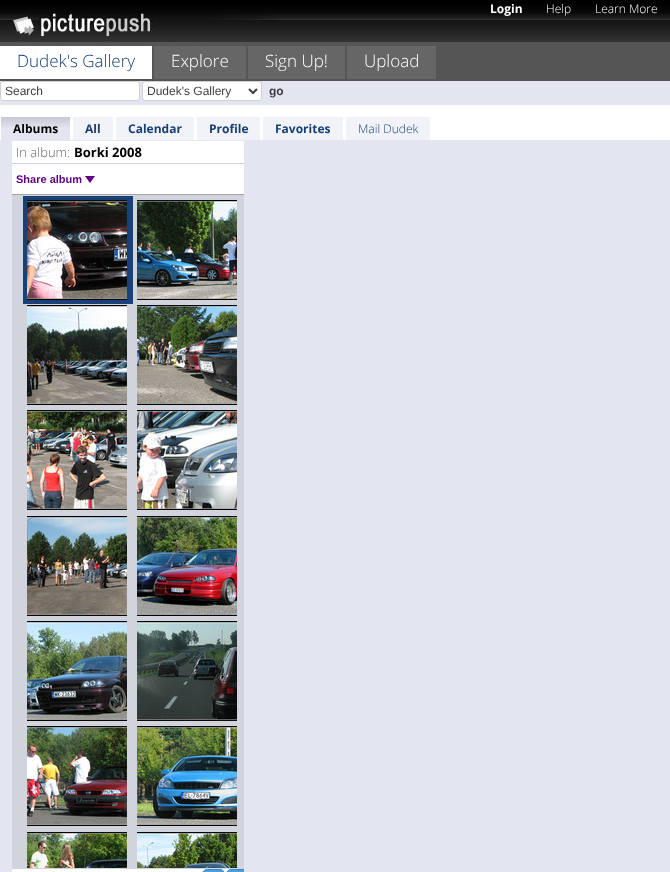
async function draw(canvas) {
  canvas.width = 670;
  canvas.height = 872;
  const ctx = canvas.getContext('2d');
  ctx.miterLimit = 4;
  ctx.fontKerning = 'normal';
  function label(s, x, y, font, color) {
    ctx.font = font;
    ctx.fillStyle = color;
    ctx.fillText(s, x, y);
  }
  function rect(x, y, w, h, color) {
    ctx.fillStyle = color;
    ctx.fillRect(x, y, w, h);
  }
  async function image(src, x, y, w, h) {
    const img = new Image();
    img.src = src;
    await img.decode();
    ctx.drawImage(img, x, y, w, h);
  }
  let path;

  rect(0, 0, 670, 872, '#e3e6f1');
  await image('assets/img1.png', 0, 0, 670, 42);
  await image('assets/img2.png', 13, 8, 264, 34);
  label('Login', 490, 13, 'bold 12px Open Sans', '#fff');
  label('Help', 546, 13, '300 12px Open Sans', '#fff');
  label('Learn More', 595, 13, '300 12px Open Sans', '#fff');
  rect(0, 42, 670, 39, '#555');
  rect(0, 46, 152, 33, '#fff');
  label('Dudek\'s Gallery', 17, 67, '300 17px Open Sans', '#163f73');
  rect(154, 46, 92, 33, '#666');
  label('Explore', 171, 67, '300 17px Open Sans', '#fff');
  rect(248, 46, 97, 33, '#666');
  label('Sign Up!', 265, 67, '300 17px Open Sans', '#fff');
  rect(347, 46, 89, 33, '#666');
  label('Upload', 364, 67, '300 17px Open Sans', '#fff');
  ctx.beginPath();
  ctx.roundRect(0.5, 81.5, 139, 19, 2.5);
  ctx.fill();
  ctx.strokeStyle = '#d0d0d0';
  ctx.stroke();
  label('Search', 5, 95, '12px Liberation Sans', '#3e3e3e');
  ctx.fillStyle = '#fff';
  ctx.beginPath();
  ctx.roundRect(142.5, 81.5, 119, 19, 2.5);
  ctx.fill();
  ctx.stroke();
  path = new Path2D('M249 89L253 93L257 89');
  ctx.strokeStyle = '#3e3e3e';
  ctx.lineWidth = 2;
  ctx.stroke(path);
  label('Dudek\'s Gallery', 147, 95, '12px Liberation Sans', '#3e3e3e');
  label('go', 269, 95, 'bold 12px Liberation Sans', '#3e3e3e');
  rect(0, 105, 670, 35, '#fff');
  rect(1, 117, 69, 23, '#e3e6f1');
  await image('assets/img3.png', 1, 117, 69, 10);
  label('Albums', 13, 133, 'bold 12px Open Sans', '#000');
  rect(73, 117, 40, 23, '#f1f3f9');
  label('All', 85, 133, 'bold 12px Open Sans', '#163f73');
  rect(116, 117, 78, 23, '#f1f3f9');
  label('Calendar', 128, 133, 'bold 12px Open Sans', '#163f73');
  rect(197, 117, 63, 23, '#f1f3f9');
  label('Profile', 209, 133, 'bold 12px Open Sans', '#163f73');
  rect(263, 117, 80, 23, '#f1f3f9');
  label('Favorites', 275, 133, 'bold 12px Open Sans', '#163f73');
  rect(346, 117, 84, 23, '#f1f3f9');
  label('Mail Dudek', 358, 133, '300 12px Open Sans', '#163f73');
  rect(12, 141, 232, 53, '#fff');
  rect(12, 194, 232, 1, '#a4a4a4');
  label('In album:', 16, 157, '300 13px Open Sans', '#666');
  label('Borki 2008', 74, 157, 'bold 13px Open Sans', '#000');
  rect(12, 163, 232, 1, '#d0d0e0');
  label('Share album', 16, 183, 'bold 11px Liberation Sans', '#5e0085');
  path = new Path2D('M85 176H95L90 183Z');
  ctx.fill(path);
  rect(12, 195, 232, 674, '#d1d4dd');
  rect(23, 196, 110, 108, '#194077');
  await image('assets/img4.png', 27, 200, 100, 100);
  await image('assets/img5.png', 137, 200, 100, 100);
  await image('assets/img6.png', 27, 305, 100, 100);
  await image('assets/img7.png', 137, 305, 100, 100);
  await image('assets/img8.png', 27, 410, 100, 100);
  await image('assets/img9.png', 137, 410, 100, 100);
  await image('assets/img10.png', 27, 516, 100, 100);
  await image('assets/img11.png', 137, 516, 100, 100);
  await image('assets/img12.png', 27, 621, 100, 100);
  await image('assets/img13.png', 137, 621, 100, 100);
  await image('assets/img14.png', 27, 726, 100, 100);
  await image('assets/img15.png', 137, 726, 100, 100);
  await image('assets/img16.png', 27, 832, 100, 36);
  await image('assets/img17.png', 137, 832, 100, 36);
  rect(12, 869, 232, 3, '#fff');
  ctx.fillStyle = '#48a0e3';
  ctx.beginPath();
  ctx.roundRect(202.5, 869.5, 22, 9, 5.5);
  ctx.fill();
  ctx.strokeStyle = '#3890d3';
  ctx.lineWidth = 1;
  ctx.stroke();
  ctx.save();
  ctx.beginPath();
  ctx.rect(12, 141, 232, 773);
  ctx.clip();
  ctx.beginPath();
  ctx.roundRect(226.5, 869.5, 22, 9, 5.5);
  ctx.fill();
  ctx.stroke();
  ctx.restore();
}

draw(document.querySelector('canvas'));
